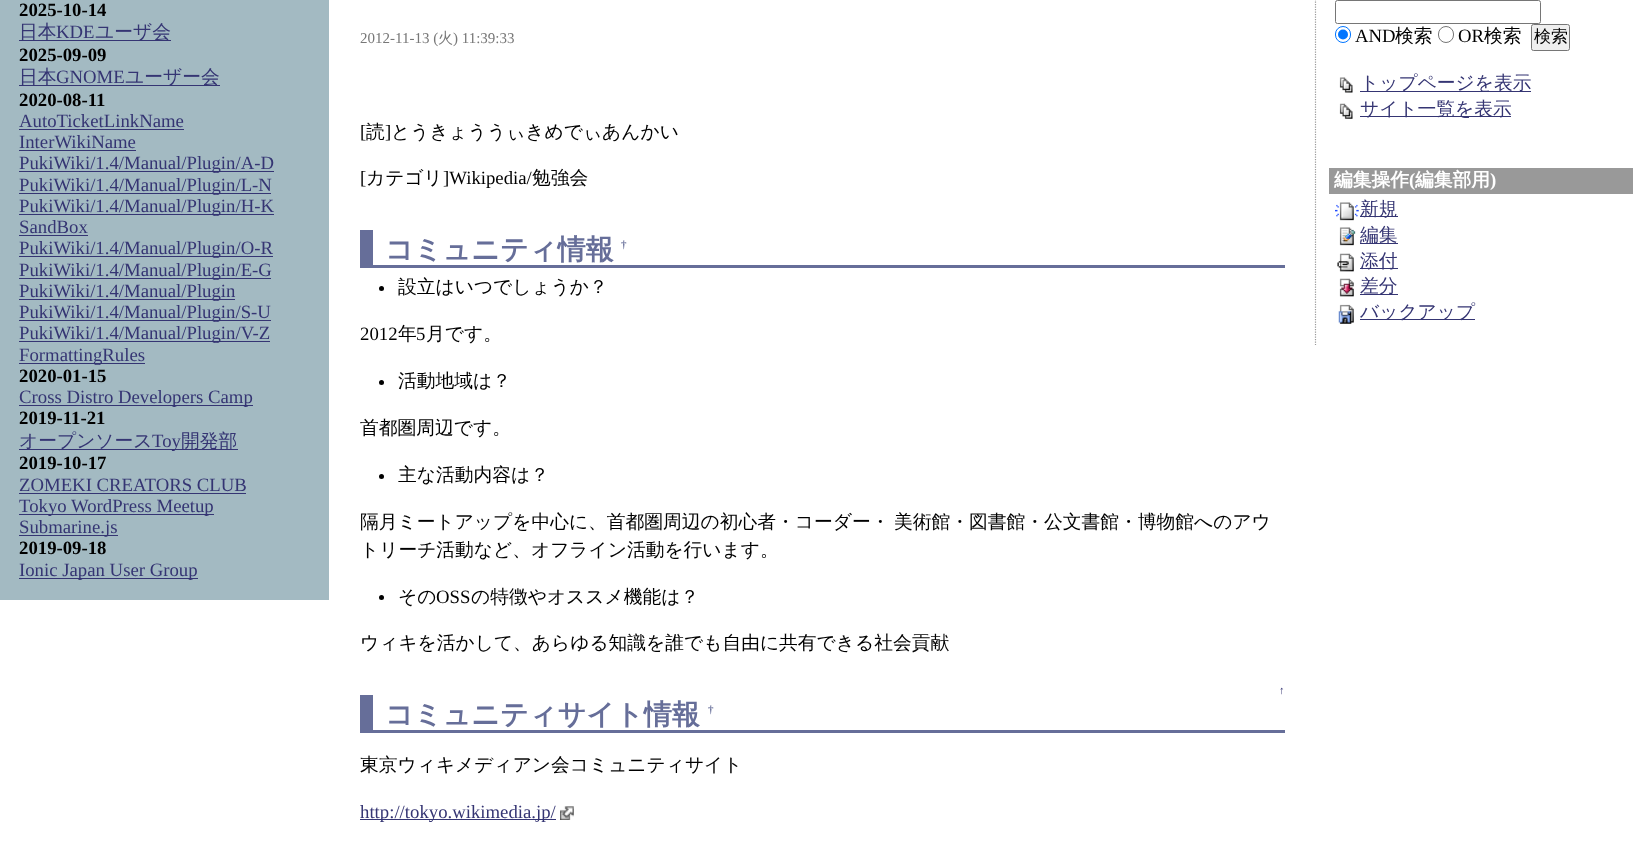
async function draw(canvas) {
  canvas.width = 1645;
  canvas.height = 842;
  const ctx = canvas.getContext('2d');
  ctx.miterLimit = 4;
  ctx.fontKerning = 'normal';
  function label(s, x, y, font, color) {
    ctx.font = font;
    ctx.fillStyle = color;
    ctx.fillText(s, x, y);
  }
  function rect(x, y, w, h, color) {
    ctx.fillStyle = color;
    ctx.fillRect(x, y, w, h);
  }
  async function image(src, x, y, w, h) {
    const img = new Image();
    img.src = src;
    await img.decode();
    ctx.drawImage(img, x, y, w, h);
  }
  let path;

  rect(0, 0, 1645, 842, '#fff');
  rect(0, 0, 329, 600, '#a3bac2');
  label('2025-10-14', 19, 16, 'bold 18.75px Liberation Serif', '#000');
  rect(19, 40, 152, 1, '#353573');
  label('日本', 19, 38, '500 18.75px WenQuanYi Zen Hei', '#353573');
  label('KDE', 56, 38, '18.75px Liberation Serif', '#353573');
  label('ユーザ会', 95, 38, '500 18.75px WenQuanYi Zen Hei', '#353573');
  label('2025-09-09', 19, 61, 'bold 18.75px Liberation Serif', '#000');
  rect(19, 85, 201, 1, '#353573');
  label('日本', 19, 83, '500 18.75px WenQuanYi Zen Hei', '#353573');
  label('GNOME', 56, 83, '18.75px Liberation Serif', '#353573');
  label('ユーザー会', 125, 83, '500 18.75px WenQuanYi Zen Hei', '#353573');
  label('2020-08-11', 19, 106, 'bold 18.75px Liberation Serif', '#000');
  label('AutoTicketLinkName', 19, 127, '18.75px Liberation Serif', '#353573');
  rect(19, 129, 165, 1, '#353573');
  label('InterWikiName', 19, 148, '18.75px Liberation Serif', '#353573');
  rect(19, 150, 117, 1, '#353573');
  rect(19, 171, 255, 1, '#353573');
  label('PukiWiki/1.4/Manual/Plugin/A-D', 19, 169, '18.75px Liberation Serif', '#353573');
  rect(19, 193, 252, 1, '#353573');
  label('PukiWiki/1.4/Manual/Plugin/L-N', 19, 191, '18.75px Liberation Serif', '#353573');
  rect(19, 214, 255, 1, '#353573');
  label('PukiWiki/1.4/Manual/Plugin/H-K', 19, 212, '18.75px Liberation Serif', '#353573');
  label('SandBox', 19, 233, '18.75px Liberation Serif', '#353573');
  rect(19, 235, 69, 1, '#353573');
  rect(19, 256, 254, 1, '#353573');
  label('PukiWiki/1.4/Manual/Plugin/O-R', 19, 254, '18.75px Liberation Serif', '#353573');
  rect(19, 278, 252, 1, '#353573');
  label('PukiWiki/1.4/Manual/Plugin/E-G', 19, 276, '18.75px Liberation Serif', '#353573');
  rect(19, 299, 216, 1, '#353573');
  label('PukiWiki/1.4/Manual/Plugin', 19, 297, '18.75px Liberation Serif', '#353573');
  rect(19, 320, 252, 1, '#353573');
  label('PukiWiki/1.4/Manual/Plugin/S-U', 19, 318, '18.75px Liberation Serif', '#353573');
  rect(19, 341, 251, 1, '#353573');
  label('PukiWiki/1.4/Manual/Plugin/V-Z', 19, 339, '18.75px Liberation Serif', '#353573');
  rect(19, 363, 126, 1, '#353573');
  label('FormattingRules', 19, 361, '18.75px Liberation Serif', '#353573');
  label('2020-01-15', 19, 382, 'bold 18.75px Liberation Serif', '#000');
  rect(19, 405, 234, 1, '#353573');
  label('Cross Distro Developers Camp', 19, 403, '18.75px Liberation Serif', '#353573');
  label('2019-11-21', 19, 424, 'bold 18.75px Liberation Serif', '#000');
  rect(19, 449, 219, 1, '#353573');
  label('オープンソース', 19, 447, '500 18.75px WenQuanYi Zen Hei', '#353573');
  label('Toy', 152, 447, '18.75px Liberation Serif', '#353573');
  label('開発部', 181, 447, '500 18.75px WenQuanYi Zen Hei', '#353573');
  label('2019-10-17', 19, 469, 'bold 18.75px Liberation Serif', '#000');
  label('ZOMEKI CREATORS CLUB', 19, 491, '18.75px Liberation Serif', '#353573');
  rect(19, 493, 227, 1, '#353573');
  rect(19, 514, 195, 1, '#353573');
  label('Tokyo WordPress Meetup', 19, 512, '18.75px Liberation Serif', '#353573');
  rect(19, 535, 99, 1, '#353573');
  label('Submarine.js', 19, 533, '18.75px Liberation Serif', '#353573');
  label('2019-09-18', 19, 554, 'bold 18.75px Liberation Serif', '#000');
  rect(19, 578, 179, 1, '#353573');
  label('Ionic Japan User Group', 19, 576, '18.75px Liberation Serif', '#353573');
  label('2012-11-13 (', 360, 43, '15px Liberation Serif', '#777');
  label('火', 438, 43, '500 15px WenQuanYi Zen Hei', '#777');
  label(') 11:39:33', 453, 43, '15px Liberation Serif', '#777');
  label('[', 360, 138, '18.75px Liberation Serif', '#000');
  label('読', 366, 138, '500 18.75px WenQuanYi Zen Hei', '#000');
  label(']', 385, 138, '18.75px Liberation Serif', '#000');
  label('とうきょううぃきめでぃあんかい', 391, 138, '500 18.75px WenQuanYi Zen Hei', '#000');
  label('[', 360, 184, '18.75px Liberation Serif', '#000');
  label('カテゴリ', 366, 184, '500 18.75px WenQuanYi Zen Hei', '#000');
  label(']Wikipedia/', 443, 184, '18.75px Liberation Serif', '#000');
  label('勉強会', 532, 184, '500 18.75px WenQuanYi Zen Hei', '#000');
  rect(373, 265, 912, 3, '#666e99');
  rect(360, 230, 13, 38, '#666e99');
  label('コミュニティ情報', 385, 259, 'bold 28.1px WenQuanYi Zen Hei', '#666e99');
  label('†', 621, 248, 'bold 11px Liberation Serif', '#666e99');
  ctx.fillStyle = '#000';
  ctx.beginPath();
  ctx.arc(381.5, 288.5, 2.5, 0, 2 * Math.PI);
  ctx.fill();
  label('設立はいつでしょうか？', 398, 293, '500 18.75px WenQuanYi Zen Hei', '#000');
  label('2012', 360, 340, '18.75px Liberation Serif', '#000');
  label('年', 398, 340, '500 18.75px WenQuanYi Zen Hei', '#000');
  label('5', 416, 340, '18.75px Liberation Serif', '#000');
  label('月です。', 426, 340, '500 18.75px WenQuanYi Zen Hei', '#000');
  ctx.beginPath();
  ctx.arc(381.5, 382.5, 2.5, 0, 2 * Math.PI);
  ctx.fill();
  label('活動地域は？', 398, 387, '500 18.75px WenQuanYi Zen Hei', '#000');
  label('首都圏周辺です。', 360, 434, '500 18.75px WenQuanYi Zen Hei', '#000');
  ctx.beginPath();
  ctx.arc(381.5, 476.5, 2.5, 0, 2 * Math.PI);
  ctx.fill();
  label('主な活動内容は？', 398, 481, '500 18.75px WenQuanYi Zen Hei', '#000');
  ctx.wordSpacing = '-1px';
  label('隔月ミートアップを中心に、首都圏周辺の初心者・コーダー・ 美術館・図書館・公文書館・博物館へのアウ', 360, 528, '500 18.75px WenQuanYi Zen Hei', '#000');
  ctx.wordSpacing = '0px';
  label('トリーチ活動など、オフライン活動を行います。', 360, 556, '500 18.75px WenQuanYi Zen Hei', '#000');
  ctx.beginPath();
  ctx.arc(381.5, 597.5, 2.5, 0, 2 * Math.PI);
  ctx.fill();
  label('その', 398, 603, '500 18.75px WenQuanYi Zen Hei', '#000');
  label('OSS', 436, 603, '18.75px Liberation Serif', '#000');
  label('の特徴やオススメ機能は？', 471, 603, '500 18.75px WenQuanYi Zen Hei', '#000');
  label('ウィキを活かして、あらゆる知識を誰でも自由に共有できる社会貢献', 360, 649, '500 18.75px WenQuanYi Zen Hei', '#000');
  label('↑', 1279, 694, '11px Liberation Serif', '#353573');
  rect(373, 730, 912, 3, '#666e99');
  rect(360, 695, 13, 38, '#666e99');
  label('コミュニティサイト情報', 385, 724, 'bold 28.1px WenQuanYi Zen Hei', '#666e99');
  label('†', 708, 713, 'bold 11px Liberation Serif', '#666e99');
  label('東京ウィキメディアン会コミュニティサイト', 360, 771, '500 18.75px WenQuanYi Zen Hei', '#000');
  rect(360, 819, 196, 1, '#353573');
  label('http://tokyo.wikimedia.jp/', 360, 818, '18.75px Liberation Serif', '#353573');
  await image('assets/img1.png', 560, 806, 14, 14);
  path = new Path2D('M1315.5-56V345');
  ctx.strokeStyle = '#999';
  ctx.lineWidth = 1.2;
  ctx.setLineDash([1.25, 1.25]);
  ctx.stroke(path);
  ctx.beginPath();
  ctx.roundRect(1335.5, 0.5, 205, 23, 2);
  ctx.strokeStyle = '#767676';
  ctx.lineWidth = 1;
  ctx.setLineDash([]);
  ctx.stroke();
  ctx.beginPath();
  ctx.roundRect(1335.5, 26.5, 15, 16, 7.5);
  ctx.strokeStyle = '#0075ff';
  ctx.stroke();
  ctx.fillStyle = '#0075ff';
  ctx.beginPath();
  ctx.arc(1343, 34.5, 5, 0, 2 * Math.PI);
  ctx.fill();
  label('AND', 1355, 42, '18.75px Liberation Serif', '#000');
  label('検索', 1395, 42, '500 18.75px WenQuanYi Zen Hei', '#000');
  ctx.beginPath();
  ctx.roundRect(1438.5, 26.5, 15, 16, 7.5);
  ctx.strokeStyle = '#767676';
  ctx.stroke();
  label('OR', 1458, 42, '18.75px Liberation Serif', '#000');
  label('検索', 1484, 42, '500 18.75px WenQuanYi Zen Hei', '#000');
  ctx.fillStyle = '#efefef';
  ctx.beginPath();
  ctx.roundRect(1531.5, 24.5, 38, 26, 2);
  ctx.fill();
  ctx.stroke();
  label('検索', 1534, 42, '500 17px WenQuanYi Zen Hei', '#000');
  await image('assets/img2.png', 1339, 77, 14, 16);
  rect(1360, 91, 171, 1, '#353573');
  label('トップページを表示', 1360, 89, '500 18.75px WenQuanYi Zen Hei', '#353573');
  await image('assets/img3.png', 1339, 103, 14, 16);
  rect(1360, 116, 151, 1, '#353573');
  label('サイト一覧を表示', 1360, 115, '500 18.75px WenQuanYi Zen Hei', '#353573');
  rect(1329, 168, 304, 26, '#999');
  label('編集操作', 1334, 186, 'bold 18.75px WenQuanYi Zen Hei', '#fff');
  label('(', 1409, 186, 'bold 18.75px Liberation Serif', '#fff');
  label('編集部用', 1415, 186, 'bold 18.75px WenQuanYi Zen Hei', '#fff');
  label(')', 1490, 186, 'bold 18.75px Liberation Serif', '#fff');
  await image('assets/img4.png', 1335, 202, 24, 19);
  rect(1360, 216, 38, 1, '#353573');
  label('新規', 1360, 215, '500 18.75px WenQuanYi Zen Hei', '#353573');
  await image('assets/img5.png', 1339, 227, 17, 19);
  rect(1360, 243, 38, 1, '#353573');
  label('編集', 1360, 241, '500 18.75px WenQuanYi Zen Hei', '#353573');
  await image('assets/img6.png', 1337, 253, 17, 19);
  rect(1360, 268, 38, 1, '#353573');
  label('添付', 1360, 267, '500 18.75px WenQuanYi Zen Hei', '#353573');
  await image('assets/img7.png', 1339, 278, 15, 19);
  rect(1360, 294, 38, 1, '#353573');
  label('差分', 1360, 292, '500 18.75px WenQuanYi Zen Hei', '#353573');
  await image('assets/img8.png', 1338, 304, 16, 20);
  rect(1360, 319, 115, 1, '#353573');
  label('バックアップ', 1360, 318, '500 18.75px WenQuanYi Zen Hei', '#353573');
}

draw(document.querySelector('canvas'));
